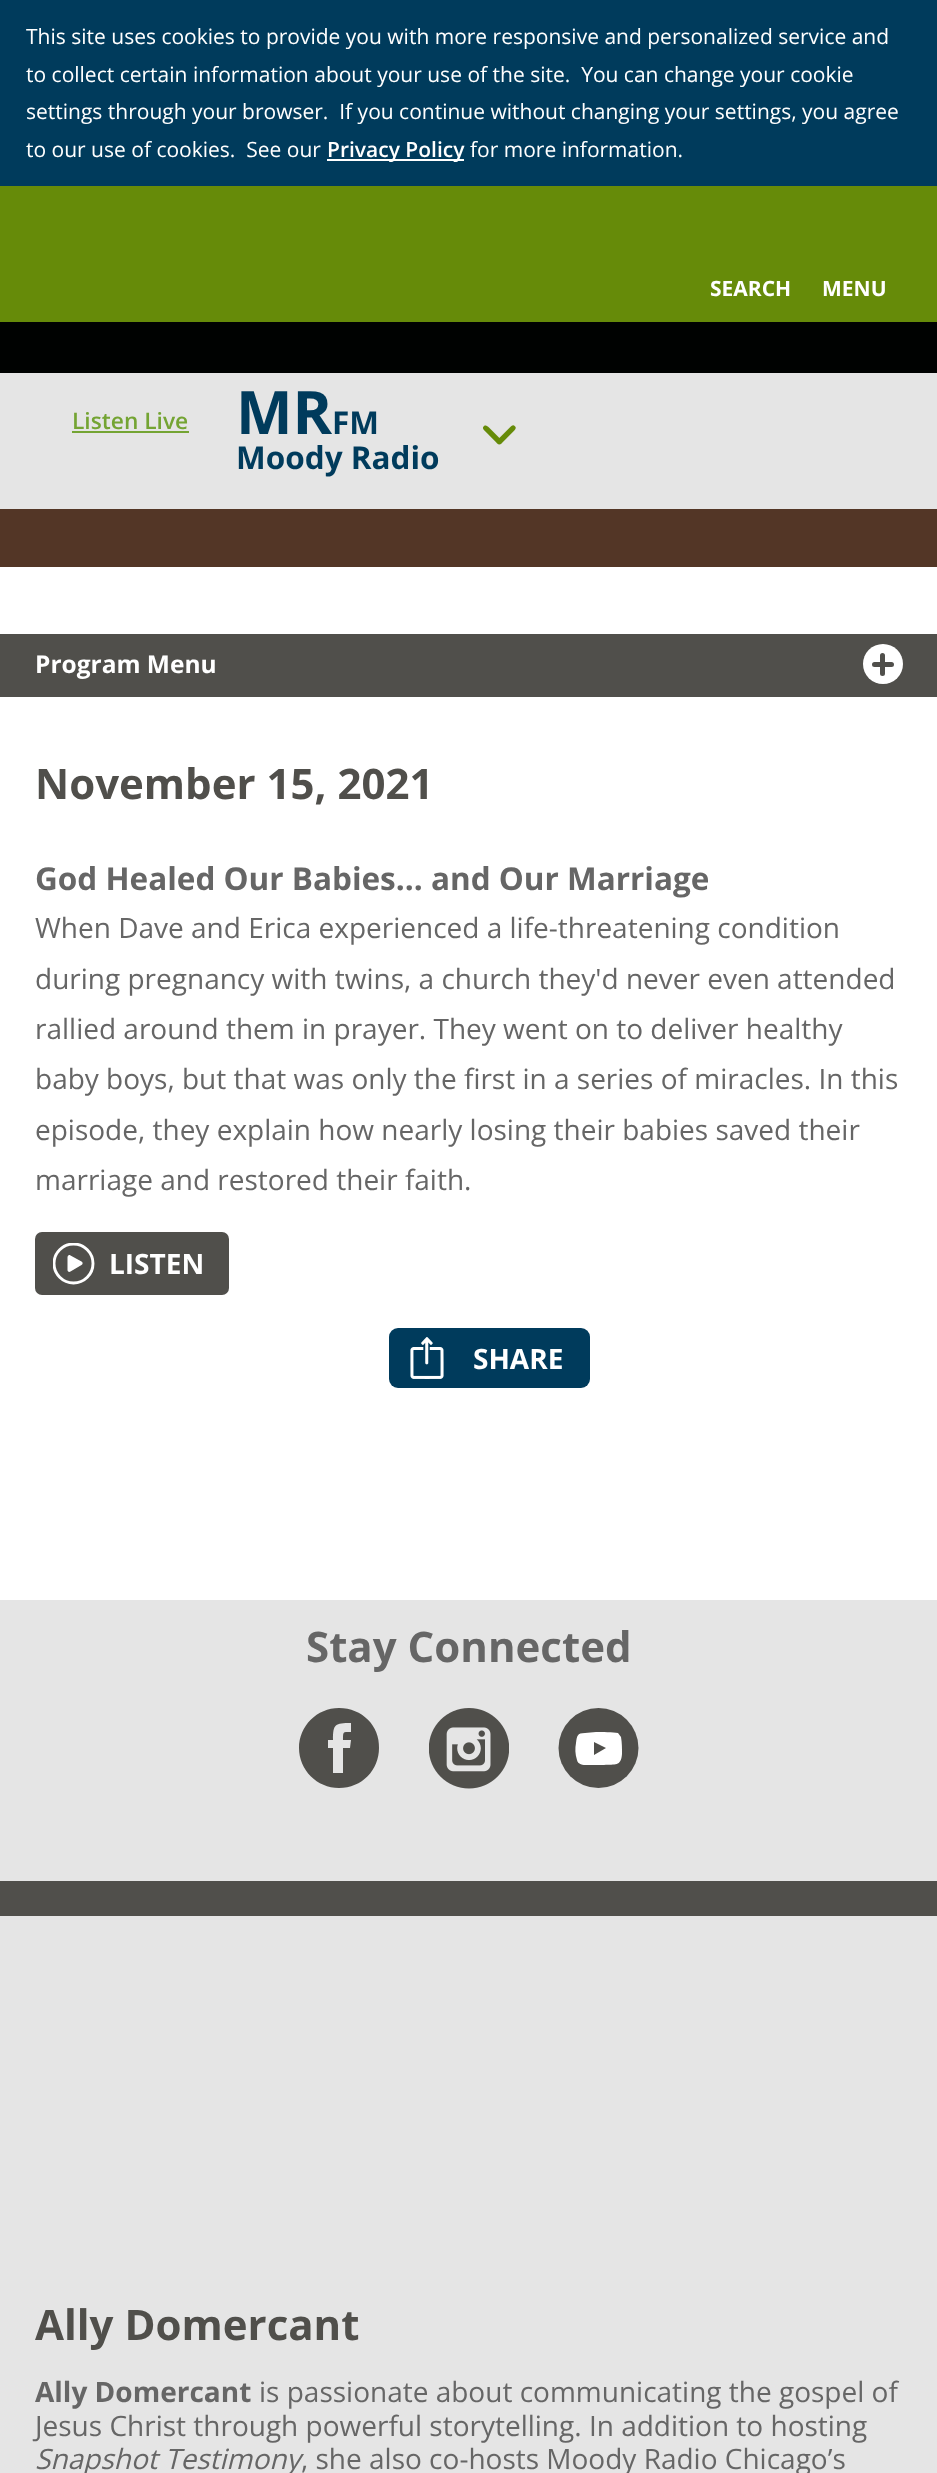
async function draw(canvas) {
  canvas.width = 937;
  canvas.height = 2473;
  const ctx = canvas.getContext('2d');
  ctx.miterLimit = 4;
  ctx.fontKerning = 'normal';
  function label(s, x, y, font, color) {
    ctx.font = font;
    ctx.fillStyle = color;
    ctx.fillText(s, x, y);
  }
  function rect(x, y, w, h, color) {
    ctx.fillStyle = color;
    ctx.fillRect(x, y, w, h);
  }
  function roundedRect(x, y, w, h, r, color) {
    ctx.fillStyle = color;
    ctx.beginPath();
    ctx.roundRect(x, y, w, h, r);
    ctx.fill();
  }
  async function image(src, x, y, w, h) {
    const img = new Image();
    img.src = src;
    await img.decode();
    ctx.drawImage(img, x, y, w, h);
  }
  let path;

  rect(0, 0, 937, 2473, '#fff');
  rect(0, 0, 937, 186, '#003b5c');
  label('This site uses cookies to provide you with more responsive and personalized service and', 26, 44, '21px Open Sans', '#fff');
  label('to collect certain information about your use of the site.  You can change your cookie', 26, 82, '21px Open Sans', '#fff');
  label('settings through your browser.  If you continue without changing your settings, you agree', 26, 119, '21px Open Sans', '#fff');
  label('to our use of cookies.  See our', 26, 157, '21px Open Sans', '#fff');
  rect(327, 159, 137, 2, '#fff');
  label('Privacy Policy', 327, 157, '600 21px Open Sans', '#fff');
  label('for more information.', 470, 157, '21px Open Sans', '#fff');
  rect(0, 186, 937, 136, '#668b09');
  label('SEARCH', 710, 296, 'bold 21px Open Sans', '#fff');
  label('MENU', 822, 296, 'bold 21px Open Sans', '#fff');
  rect(0, 322, 937, 51, '#000201');
  rect(0, 373, 937, 136, '#e5e5e5');
  label('Listen Live', 72, 429, '600 22.75px Open Sans', '#74a433');
  rect(72, 431, 117, 2, '#74a433');
  label('MR', 236, 434, 'bold 60px Open Sans', '#003b5c');
  label('FM', 332, 434, 'bold 31.5px Open Sans', '#003b5c');
  label('Moody Radio', 236, 469, 'bold 31.5px Open Sans', '#003b5c');
  await image('assets/img1.png', 483, 425, 33, 20);
  rect(0, 509, 937, 58, '#533626');
  rect(0, 634, 937, 63, '#504f4b');
  label('Program Menu', 35, 673, 'bold 24.5px Open Sans', '#fff');
  ctx.beginPath();
  ctx.arc(883, 664, 20, 0, 2 * Math.PI);
  ctx.fill();
  rect(873, 664, 20, 1, '#504f4b');
  ctx.beginPath();
  ctx.roundRect(873, 663, 20, 3, 1.5);
  ctx.strokeStyle = '#504f4b';
  ctx.lineWidth = 2;
  ctx.stroke();
  ctx.beginPath();
  ctx.roundRect(881, 654, 3, 21, 1.5);
  ctx.fill();
  ctx.stroke();
  label('November 15, 2021', 35, 799, 'bold 42px Open Sans', '#504f4b');
  label('God Healed Our Babies... and Our Marriage', 35, 890, 'bold 31.5px Open Sans', '#666');
  label('When Dave and Erica experienced a life-threatening condition', 35, 938, '28px Open Sans', '#666');
  label('during pregnancy with twins, a church they\'d never even attended', 35, 989, '28px Open Sans', '#666');
  label('rallied around them in prayer. They went on to deliver healthy', 35, 1039, '28px Open Sans', '#666');
  label('baby boys, but that was only the first in a series of miracles. In this', 35, 1089, '28px Open Sans', '#666');
  label('episode, they explain how nearly losing their babies saved their', 35, 1140, '28px Open Sans', '#666');
  label('marriage and restored their faith.', 35, 1190, '28px Open Sans', '#666');
  roundedRect(35, 1232, 194, 63, 7, '#504f4b');
  ctx.fillStyle = '#fff';
  path = new Path2D('M81.5 1265C83 1264 83 1262.5 81.5 1261.5L70.5 1255.5C69 1254.5 67.5 1255.5 67.5 1257.5V1270C67.5 1271.5 69 1272.5 70.5 1271.5Z');
  ctx.fill(path);
  ctx.save();
  ctx.beginPath();
  ctx.rect(53, 1243, 42, 42);
  ctx.clip();
  ctx.beginPath();
  ctx.arc(73.5, 1263.5, 19.5, 0, 2 * Math.PI);
  ctx.strokeStyle = '#fff';
  ctx.lineWidth = 2.9;
  ctx.stroke();
  ctx.restore();
  label('LISTEN', 109, 1274, 'bold 28px Open Sans', '#fff');
  roundedRect(389, 1328, 201, 60, 9, '#003b5c');
  await image('assets/img2.png', 410, 1337, 34, 42);
  label('SHARE', 473, 1369, 'bold 28px Open Sans', '#fff');
  rect(0, 1600, 937, 281, '#e5e5e5');
  label('Stay Connected', 306, 1662, 'bold 42px Open Sans', '#666');
  ctx.fillStyle = '#504f4b';
  path = new Path2D('M339 1708C317 1708 299 1726 299 1748C299 1770 317 1788 339 1788C362 1788 379 1770 379 1748C380 1726 362 1708 339 1708M351 1732C343 1732 343 1731 343 1740H351L350 1748H343V1773H333V1748H328V1740H333C333 1724 335 1723 351 1723Z');
  ctx.fill(path);
  await image('assets/img3.png', 429, 1708, 80, 81);
  ctx.beginPath();
  ctx.arc(598.5, 1748, 40, 0, 2 * Math.PI);
  ctx.fill();
  ctx.fillStyle = '#fff';
  path = new Path2D('M621 1737C620 1736 619 1734 618 1733C613 1732 602 1732 596 1732L585 1733C577 1733 577 1736 576 1743C575 1748 575 1754 577 1760C578 1766 587 1765 591 1765H604C615 1764 621 1767 622 1754C622 1748 622 1743 621 1737ZM594 1755V1742L606 1748Z');
  ctx.fill(path);
  rect(0, 1916, 937, 557, '#e5e5e5');
  rect(0, 1881, 937, 35, '#504f4b');
  label('Ally Domercant', 35, 2340, 'bold 42px Open Sans', '#504f4b');
  label('Ally Domercant', 35, 2402, 'bold 28px Open Sans', '#666');
  label('is passionate about communicating the gospel of', 259, 2402, '28px Open Sans', '#666');
  label('Jesus Christ through powerful storytelling. In addition to hosting', 35, 2436, '28px Open Sans', '#666');
  label('Snapshot Testimony', 35, 2469, 'italic 28px Open Sans', '#666');
  label(', she also co-hosts Moody Radio Chicago’s', 301, 2469, '28px Open Sans', '#666');
}

draw(document.querySelector('canvas'));
